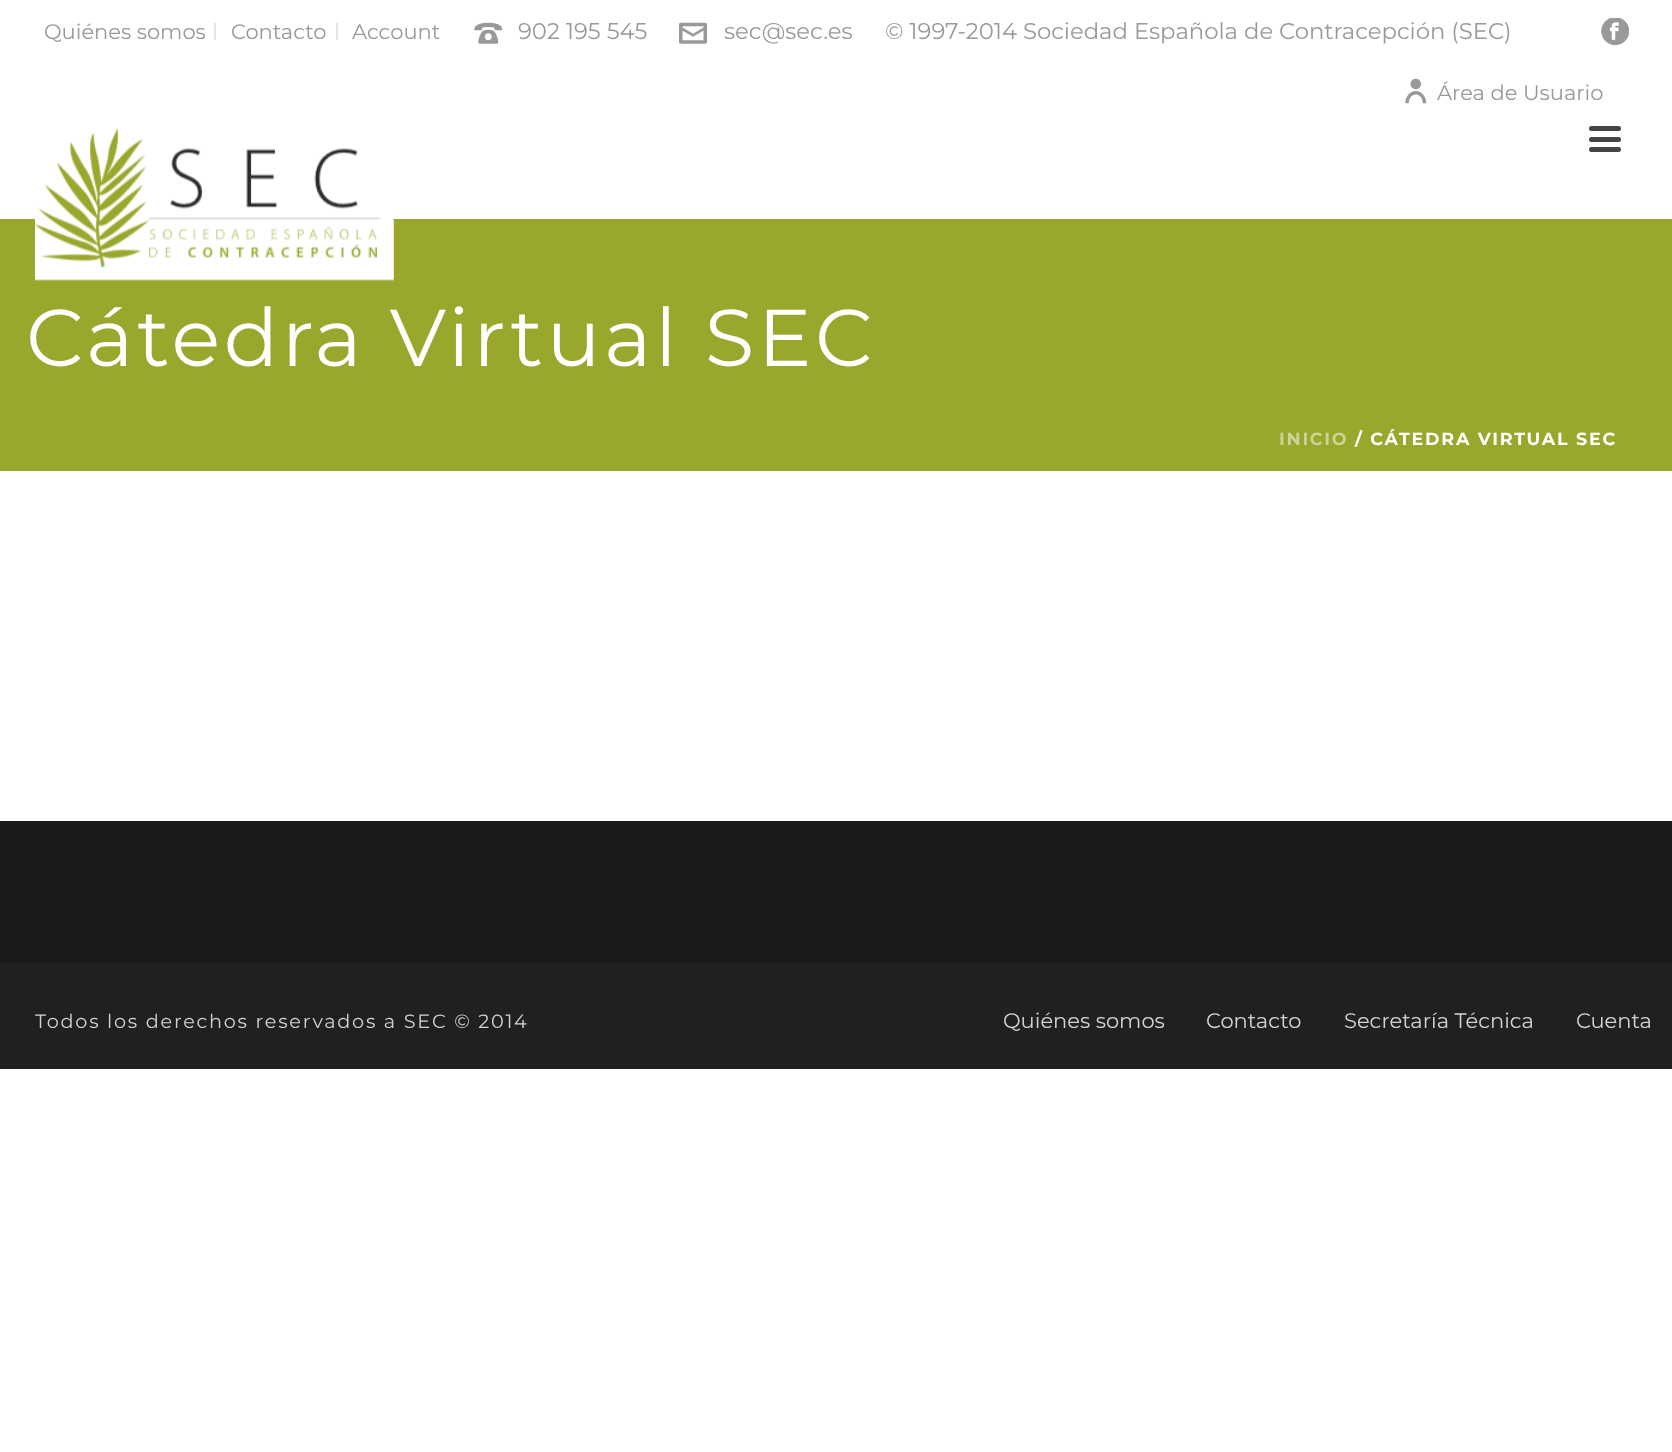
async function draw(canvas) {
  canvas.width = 1672;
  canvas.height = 1452;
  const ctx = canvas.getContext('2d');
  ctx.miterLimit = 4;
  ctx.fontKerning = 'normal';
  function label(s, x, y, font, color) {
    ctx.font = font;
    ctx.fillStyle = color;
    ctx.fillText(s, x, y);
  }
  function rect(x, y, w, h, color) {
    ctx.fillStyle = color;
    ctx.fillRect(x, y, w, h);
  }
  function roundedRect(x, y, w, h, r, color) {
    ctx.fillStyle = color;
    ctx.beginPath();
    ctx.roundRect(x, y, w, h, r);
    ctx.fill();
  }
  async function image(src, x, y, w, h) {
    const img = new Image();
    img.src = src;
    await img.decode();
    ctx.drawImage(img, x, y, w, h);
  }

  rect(0, 0, 1672, 1452, '#fff');
  rect(0, 219, 1672, 252, '#99a72c');
  rect(214, 23, 2, 17, '#e6e6e6');
  label('Quiénes somos', 44, 39, '21px Montserrat', '#999');
  rect(336, 23, 2, 17, '#e6e6e6');
  label('Contacto', 231, 39, '21px Montserrat', '#999');
  label('Account', 352, 39, '21px Montserrat', '#999');
  await image('assets/img1.png', 474, 22, 29, 22);
  label('902 195 545', 518, 39, '22.75px Montserrat', '#999');
  await image('assets/img2.png', 679, 22, 28, 22);
  label('sec@sec.es', 724, 39, '22.75px Montserrat', '#999');
  label('© 1997-2014 Sociedad Española de Contracepción (SEC)', 885, 39, '22.75px Montserrat', '#999');
  await image('assets/img3.png', 1601, 18, 28, 28);
  await image('assets/img4.png', 1405, 78, 22, 26);
  label('Área de Usuario', 1437, 100, '21px Montserrat', '#999');
  await image('assets/img5.png', 35, 128, 359, 153);
  roundedRect(1589, 126, 32, 5, 2.5, '#444');
  roundedRect(1589, 137, 32, 5, 2.5, '#444');
  roundedRect(1589, 147, 32, 5, 2.5, '#444');
  ctx.letterSpacing = '3.5px';
  label('Cátedra Virtual SEC', 26, 366, '80.5px Montserrat', '#fff');
  ctx.letterSpacing = '1.75px';
  label('INICIO', 1279, 445, 'bold 17.5px Montserrat', '#ccd396');
  label('/ CÁTEDRA VIRTUAL SEC', 1355, 445, 'bold 17.5px Montserrat', '#fff');
  rect(0, 821, 1672, 142, '#1a1a1a');
  rect(0, 963, 1672, 106, '#202020');
  label('Todos los derechos reservados a SEC © 2014', 35, 1028, '19.25px Montserrat', '#d2d2d2');
  ctx.letterSpacing = '0px';
  label('Quiénes somos', 1003, 1028, '21px Montserrat', '#d2d2d2');
  label('Contacto', 1206, 1028, '21px Montserrat', '#d2d2d2');
  label('Secretaría Técnica', 1344, 1028, '21px Montserrat', '#d2d2d2');
  label('Cuenta', 1576, 1028, '21px Montserrat', '#d2d2d2');
}

draw(document.querySelector('canvas'));
